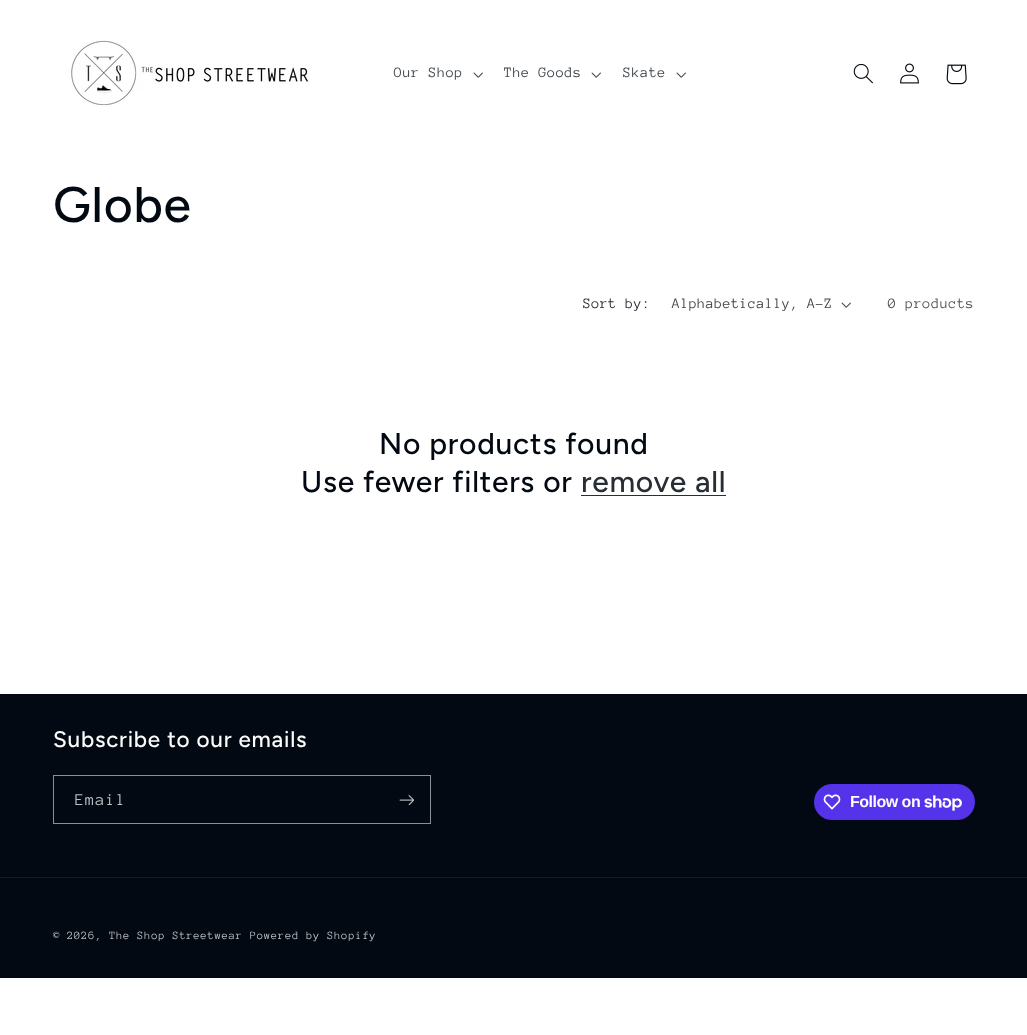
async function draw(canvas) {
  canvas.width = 1027;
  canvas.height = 1035;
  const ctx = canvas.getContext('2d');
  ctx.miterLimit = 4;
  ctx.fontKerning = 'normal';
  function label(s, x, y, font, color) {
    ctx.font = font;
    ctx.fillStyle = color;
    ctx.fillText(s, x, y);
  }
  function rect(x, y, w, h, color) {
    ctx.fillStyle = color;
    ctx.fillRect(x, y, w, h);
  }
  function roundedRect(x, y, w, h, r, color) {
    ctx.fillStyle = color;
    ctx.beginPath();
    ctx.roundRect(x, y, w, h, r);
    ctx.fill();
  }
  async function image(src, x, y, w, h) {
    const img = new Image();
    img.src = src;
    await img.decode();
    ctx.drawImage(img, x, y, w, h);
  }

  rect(0, 0, 1027, 1035, '#fff');
  await image('assets/img1.png', 69, 40, 240, 66);
  ctx.letterSpacing = '0.6px';
  label('Our Shop', 394, 77, '14.75px Anonymous Pro', '#41474d');
  await image('assets/img2.png', 473, 72, 10, 6);
  label('The Goods', 504, 77, '14.75px Anonymous Pro', '#41474d');
  await image('assets/img2.png', 591, 72, 10, 6);
  label('Skate', 623, 77, '14.75px Anonymous Pro', '#41474d');
  await image('assets/img2.png', 676, 72, 10, 6);
  await image('assets/img3.png', 853, 63, 20, 21);
  await image('assets/img4.png', 900, 63, 19, 21);
  await image('assets/img5.png', 946, 64, 21, 21);
  ctx.letterSpacing = '0.75px';
  label('Globe', 53, 222, '500 50px Figtree', '#020912');
  ctx.letterSpacing = '0.4px';
  label('Sort by:', 583, 308, '14.75px Anonymous Pro', '#282e36');
  label('Alphabetically, A-Z', 672, 308, '14.75px Anonymous Pro', '#41474d');
  await image('assets/img2.png', 841, 302, 10, 6);
  ctx.letterSpacing = '0.6px';
  label('0 products', 888, 308, '14.75px Anonymous Pro', '#4e5359');
  ctx.letterSpacing = '0.75px';
  label('No products found', 379, 454, '500 30px Figtree', '#020912');
  label('Use fewer filters or', 301, 492, '500 30px Figtree', '#020912');
  label('remove all', 581, 492, '500 30px Figtree', '#282e36');
  rect(581, 495, 145, 1, '#282e36');
  rect(0, 694, 1027, 284, '#020912');
  label('Subscribe to our emails', 53, 747, '500 22.5px Figtree', '#fcfcfc');
  ctx.strokeStyle = '#8c8f93';
  ctx.strokeRect(53.5, 775.5, 377, 48);
  ctx.letterSpacing = '1px';
  label('Email', 75, 805, '17px Anonymous Pro', '#bebfc2');
  await image('assets/img6.png', 399, 795, 15, 11);
  roundedRect(814, 784, 161, 36, 18, '#5433eb');
  await image('assets/img7.png', 823, 794, 18, 16);
  ctx.letterSpacing = '-0.5px';
  label('Follow on', 850, 807, 'bold 16px Liberation Sans', '#fcfcfc');
  await image('assets/img8.png', 924, 795, 38, 16);
  rect(0, 877, 1027, 1, '#161c25');
  ctx.letterSpacing = '0.75px';
  label('© 2026, The Shop Streetwear', 53, 939, '11.5px Anonymous Pro', '#bebfc2');
  label('Powered by Shopify', 250, 939, '11.5px Anonymous Pro', '#bebfc2');
}

draw(document.querySelector('canvas'));
